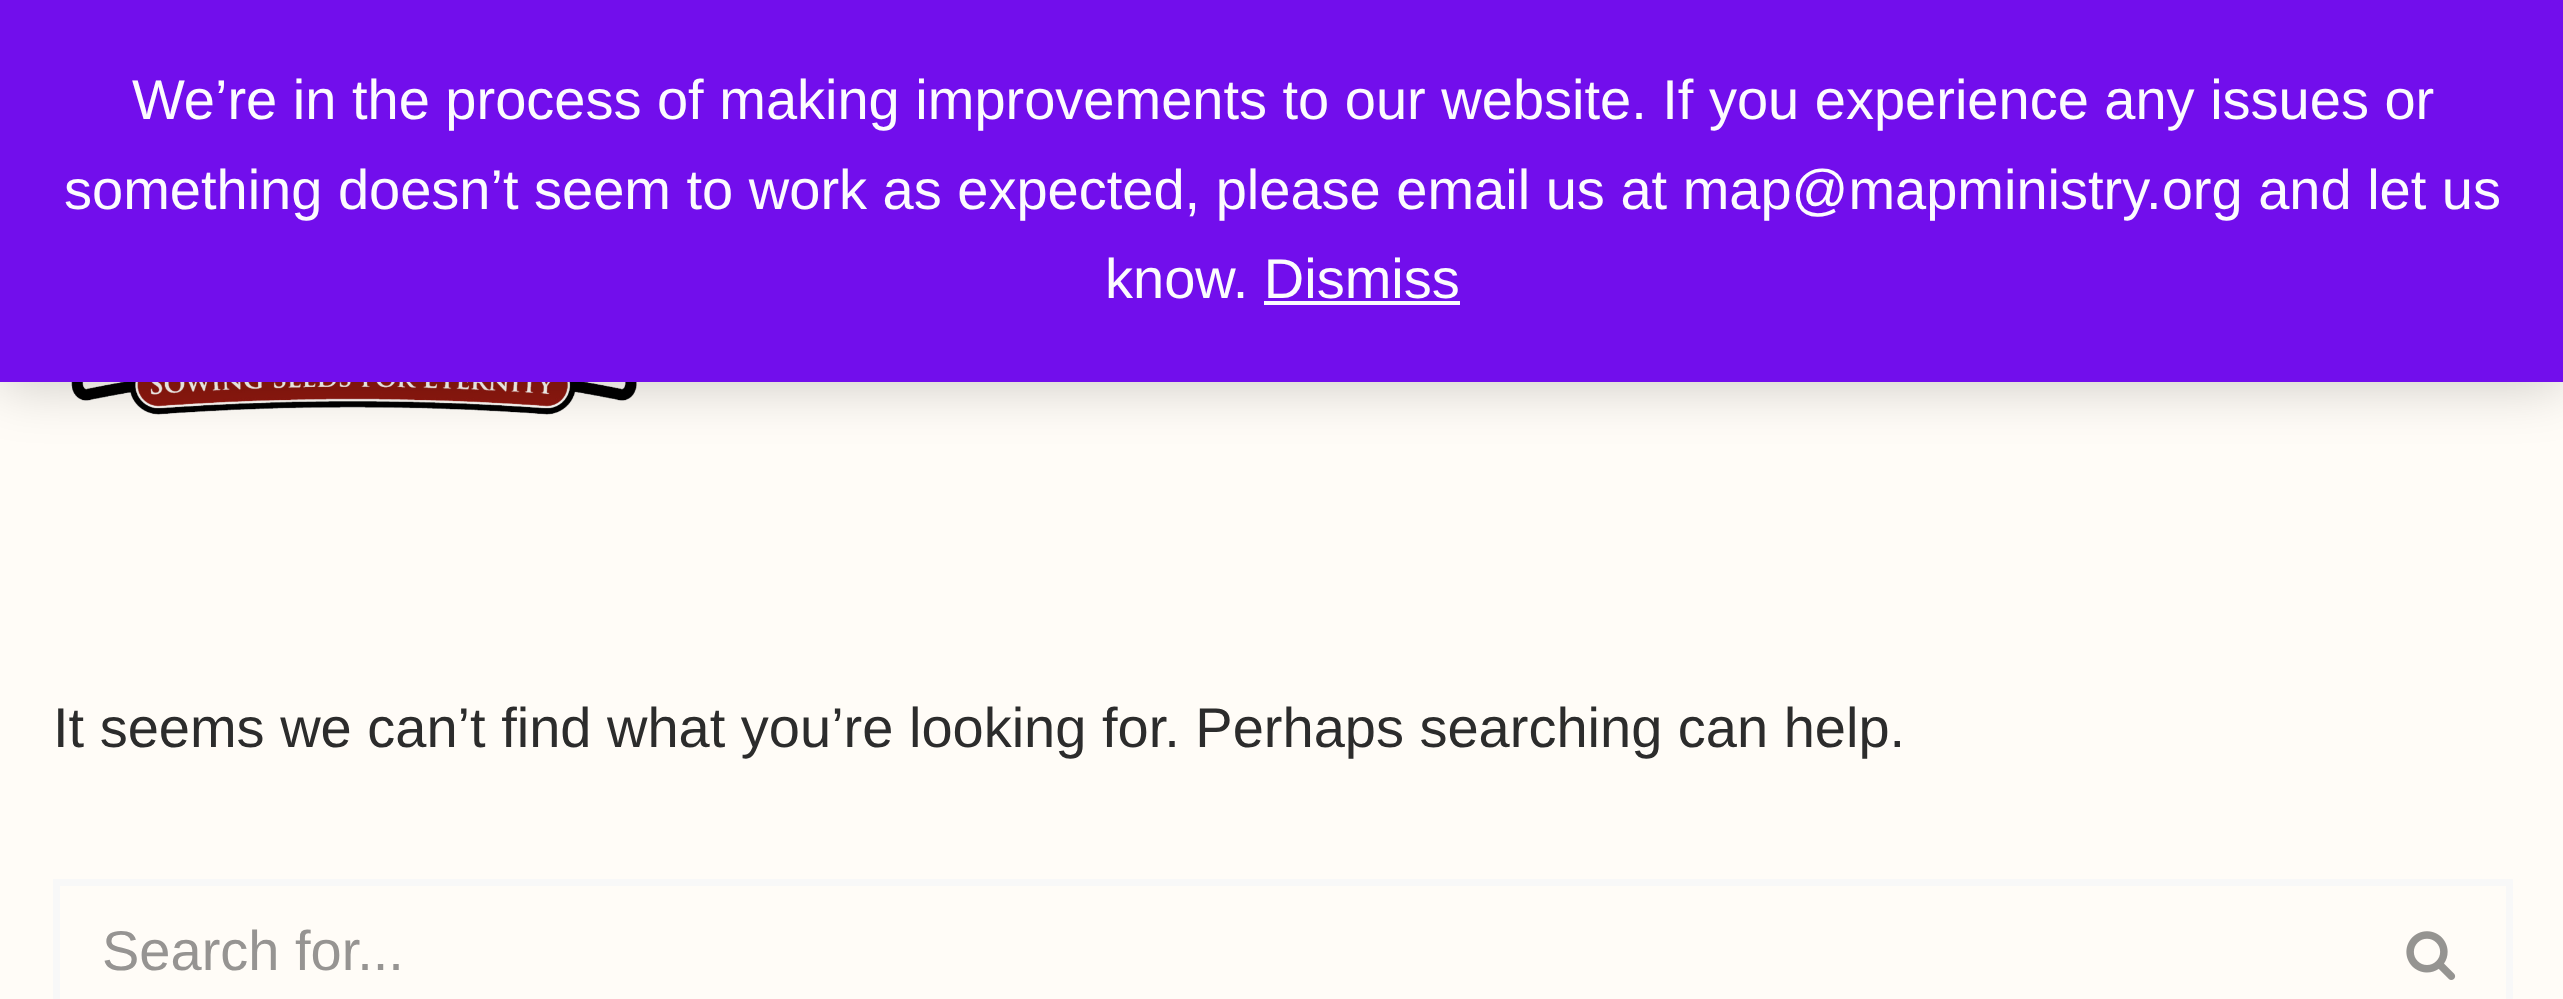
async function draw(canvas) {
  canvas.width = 2563;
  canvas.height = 999;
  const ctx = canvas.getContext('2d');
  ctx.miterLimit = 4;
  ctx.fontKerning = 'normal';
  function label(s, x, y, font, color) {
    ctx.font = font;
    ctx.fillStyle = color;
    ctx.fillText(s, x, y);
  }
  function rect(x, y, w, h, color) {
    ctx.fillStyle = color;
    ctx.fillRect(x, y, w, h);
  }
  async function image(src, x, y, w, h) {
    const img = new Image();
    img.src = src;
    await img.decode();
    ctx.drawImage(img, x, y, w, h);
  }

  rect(0, 0, 2563, 999, '#fffcf7');
  await image('assets/img1.png', 71, 382, 566, 33);
  ctx.fillStyle = '#00000033';
  ctx.filter = 'blur(28px)';
  ctx.beginPath();
  ctx.rect(0, 4, 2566, 381);
  ctx.fill();
  ctx.filter = 'none';
  rect(0, 0, 2563, 382, '#720eec');
  label('We’re in the process of making improvements to our website. If you experience any issues or', 132, 119, '56px Liberation Sans', '#fcfbfe');
  label('something doesn’t seem to work as expected, please email us at map@mapministry.org and let us', 64, 209, '56px Liberation Sans', '#fcfbfe');
  label('know. Dismiss', 1105, 298, '56px Liberation Sans', '#fcfbfe');
  rect(1264, 301, 196, 4, '#fcfbfe');
  label('It seems we can’t find what you’re looking for. Perhaps searching can help.', 53, 747, '56px Liberation Sans', '#2c2c2c');
  rect(53, 879, 2460, 7, '#f8f8f8');
  rect(53, 879, 7, 120, '#f8f8f8');
  label('Search for...', 102, 970, '56px Liberation Sans', '#969492');
  rect(2506, 879, 7, 120, '#f8f8f8');
  await image('assets/img2.png', 2406, 931, 50, 49);
}

draw(document.querySelector('canvas'));
